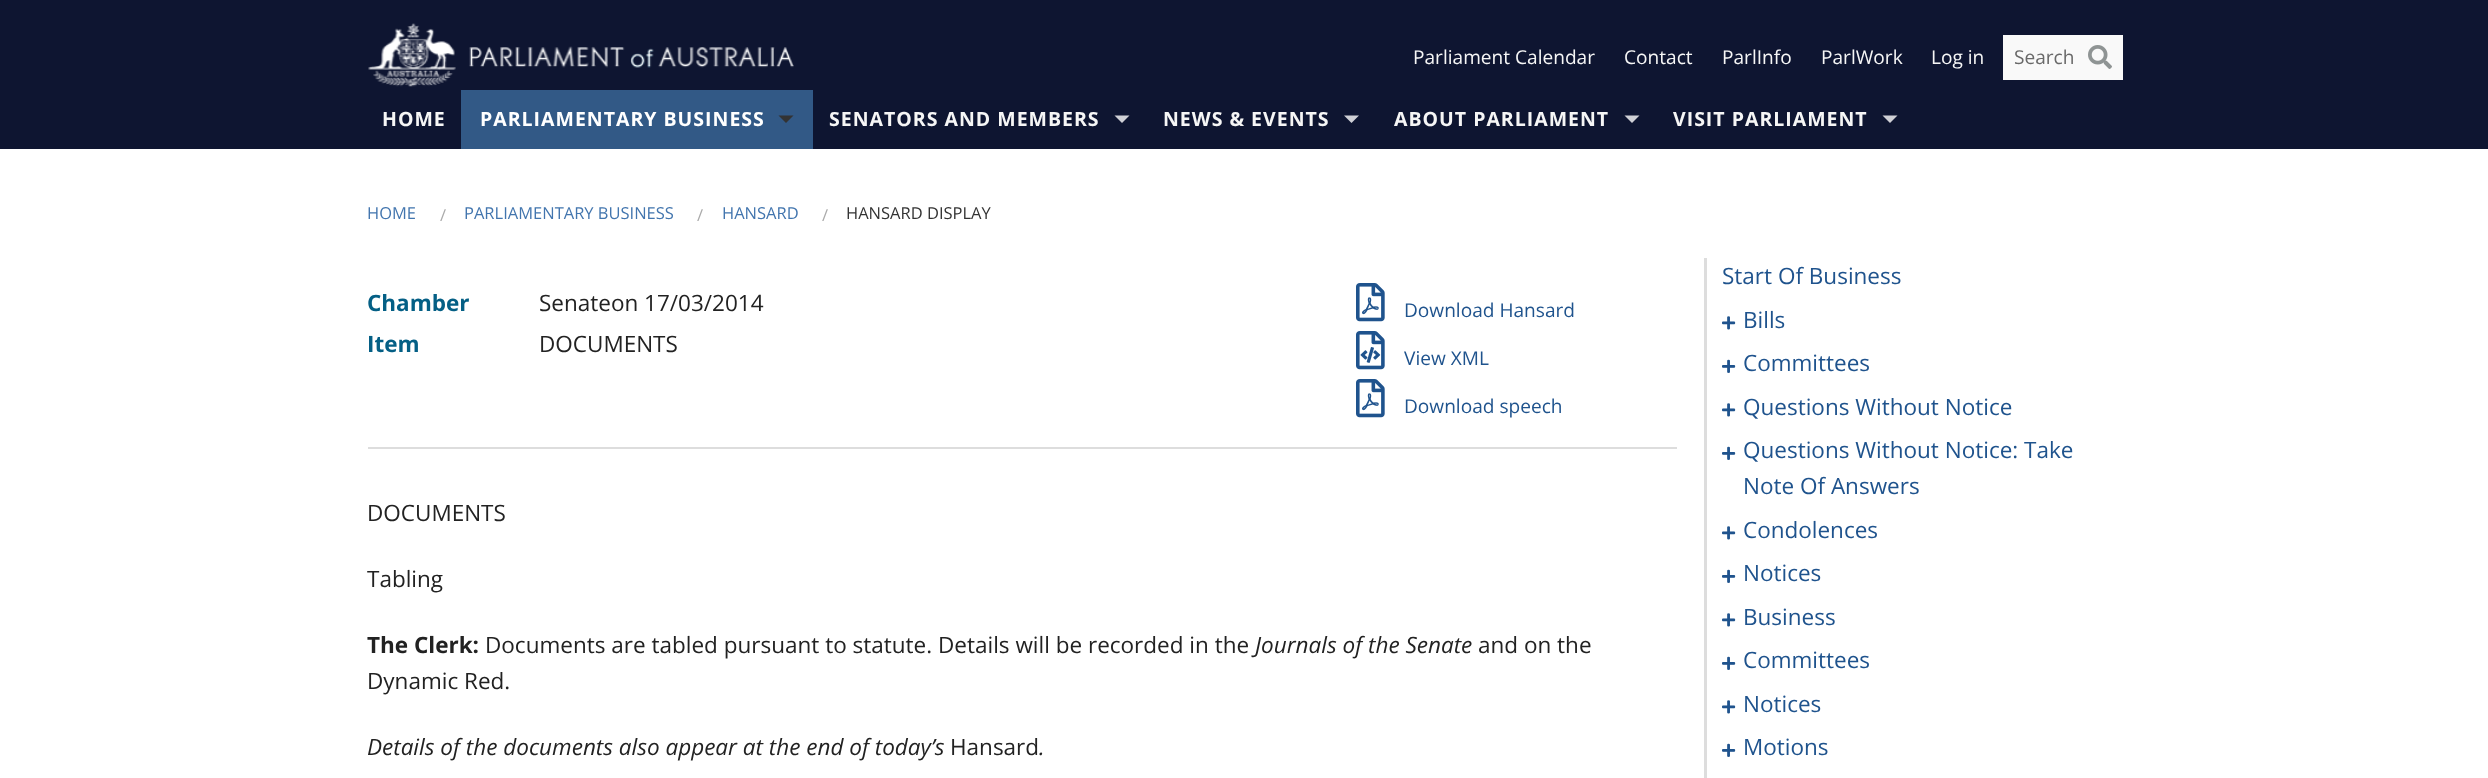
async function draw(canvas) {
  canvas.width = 2488;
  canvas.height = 778;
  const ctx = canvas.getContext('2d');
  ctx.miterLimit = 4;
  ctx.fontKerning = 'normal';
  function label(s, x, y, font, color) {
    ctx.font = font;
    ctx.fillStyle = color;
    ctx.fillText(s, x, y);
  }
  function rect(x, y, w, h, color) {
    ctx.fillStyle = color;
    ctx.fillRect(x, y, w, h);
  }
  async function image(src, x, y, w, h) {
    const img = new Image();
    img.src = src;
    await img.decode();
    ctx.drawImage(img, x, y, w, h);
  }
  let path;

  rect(0, 0, 2488, 778, '#fff');
  rect(0, 0, 2488, 149, '#0e1531');
  await image('assets/img1.png', 368, 23, 426, 64);
  label('Parliament Calendar', 1413, 64, '19.1px Open Sans', '#f6f6f6');
  label('Contact', 1624, 64, '19.1px Open Sans', '#f6f6f6');
  label('ParlInfo', 1722, 64, '19.1px Open Sans', '#f6f6f6');
  label('ParlWork', 1821, 64, '19.1px Open Sans', '#f6f6f6');
  label('Log in', 1931, 64, '19.1px Open Sans', '#f6f6f6');
  rect(2003, 35, 120, 45, '#f9f9f9');
  label('Search', 2014, 64, '19.1px Open Sans', '#696969');
  await image('assets/img2.png', 2088, 45, 24, 24);
  ctx.letterSpacing = '1px';
  label('HOME', 382, 126, 'bold 19.5px Open Sans', '#f6f6f6');
  rect(461, 90, 352, 59, '#325986');
  label('PARLIAMENTARY BUSINESS', 480, 126, 'bold 19.5px Open Sans', '#fff');
  ctx.fillStyle = '#333';
  path = new Path2D('M778.5 115.5H793.5L786 123Z');
  ctx.fill(path);
  label('SENATORS AND MEMBERS', 829, 126, 'bold 19.5px Open Sans', '#f6f6f6');
  ctx.fillStyle = '#cfd0d6';
  path = new Path2D('M1114.5 115.5H1129.5L1122 123Z');
  ctx.fill(path);
  label('NEWS & EVENTS', 1163, 126, 'bold 19.5px Open Sans', '#f6f6f6');
  ctx.fillStyle = '#cfd0d6';
  path = new Path2D('M1344 115.5H1359L1351.5 123Z');
  ctx.fill(path);
  label('ABOUT PARLIAMENT', 1394, 126, 'bold 19.5px Open Sans', '#f6f6f6');
  ctx.fillStyle = '#cfd0d6';
  path = new Path2D('M1624.5 115.5H1639.5L1632 123Z');
  ctx.fill(path);
  label('VISIT PARLIAMENT', 1673, 126, 'bold 19.5px Open Sans', '#f6f6f6');
  ctx.fillStyle = '#cfd0d6';
  path = new Path2D('M1882.5 115.5H1897.5L1890 123Z');
  ctx.fill(path);
  ctx.letterSpacing = '0px';
  label('HOME', 367, 219, '16.5px Open Sans', '#4275ae');
  label('/', 440, 221, '16.5px Open Sans', '#aaa');
  label('PARLIAMENTARY BUSINESS', 464, 219, '16.5px Open Sans', '#4275ae');
  label('/', 697, 221, '16.5px Open Sans', '#aaa');
  label('HANSARD', 722, 219, '16.5px Open Sans', '#4275ae');
  label('/', 822, 221, '16.5px Open Sans', '#aaa');
  label('HANSARD DISPLAY', 846, 219, '16.5px Open Sans', '#333');
  label('Chamber', 367, 311, 'bold 22.5px Open Sans', '#045f85');
  label('Senateon 17/03/2014', 539, 311, '22.5px Open Sans', '#222');
  label('Item', 367, 352, 'bold 22.5px Open Sans', '#045f85');
  label('DOCUMENTS', 539, 352, '22.5px Open Sans', '#222');
  await image('assets/img3.png', 1356, 283, 29, 39);
  label('Download Hansard', 1404, 317, '19.1px Open Sans', '#1f538d');
  await image('assets/img4.png', 1356, 331, 29, 39);
  label('View XML', 1404, 365, '19.1px Open Sans', '#1f538d');
  await image('assets/img3.png', 1356, 379, 29, 39);
  label('Download speech', 1404, 413, '19.1px Open Sans', '#1f538d');
  rect(368, 447, 1309, 2, '#ddd');
  label('DOCUMENTS', 367, 521, '22.5px Open Sans', '#222');
  label('Tabling', 367, 587, '22.5px Open Sans', '#222');
  label('The Clerk:', 367, 653, 'bold 22.5px Open Sans', '#222');
  label('Documents are tabled pursuant to statute. Details will be recorded in the', 485, 653, '22.5px Open Sans', '#222');
  label('Journals of the Senate', 1255, 653, 'italic 22.5px Open Sans', '#222');
  label('and on the', 1478, 653, '22.5px Open Sans', '#222');
  label('Dynamic Red.', 367, 689, '22.5px Open Sans', '#222');
  label('Details of the documents also appear at the end of today’s', 367, 755, 'italic 22.5px Open Sans', '#222');
  label('Hansard', 950, 755, '22.5px Open Sans', '#222');
  label('.', 1039, 755, 'italic 22.5px Open Sans', '#222');
  rect(1704, 258, 3, 520, '#ddd');
  label('Start Of Business', 1722, 284, '22.5px Open Sans', '#1f538d');
  await image('assets/img5.png', 1722, 316, 14, 14);
  label('Bills', 1743, 328, '22.5px Open Sans', '#1f538d');
  await image('assets/img6.png', 1722, 359, 14, 14);
  label('Committees', 1743, 371, '22.5px Open Sans', '#1f538d');
  await image('assets/img5.png', 1722, 403, 14, 14);
  label('Questions Without Notice', 1743, 415, '22.5px Open Sans', '#1f538d');
  await image('assets/img6.png', 1722, 446, 14, 14);
  label('Questions Without Notice: Take', 1743, 458, '22.5px Open Sans', '#1f538d');
  label('Note Of Answers', 1743, 494, '22.5px Open Sans', '#1f538d');
  await image('assets/img5.png', 1722, 526, 14, 14);
  label('Condolences', 1743, 538, '22.5px Open Sans', '#1f538d');
  await image('assets/img6.png', 1722, 569, 14, 14);
  label('Notices', 1743, 581, '22.5px Open Sans', '#1f538d');
  await image('assets/img5.png', 1722, 613, 14, 14);
  label('Business', 1743, 625, '22.5px Open Sans', '#1f538d');
  await image('assets/img6.png', 1722, 656, 14, 14);
  label('Committees', 1743, 668, '22.5px Open Sans', '#1f538d');
  await image('assets/img5.png', 1722, 700, 14, 14);
  label('Notices', 1743, 712, '22.5px Open Sans', '#1f538d');
  await image('assets/img6.png', 1722, 743, 14, 14);
  label('Motions', 1743, 755, '22.5px Open Sans', '#1f538d');
}

draw(document.querySelector('canvas'));
